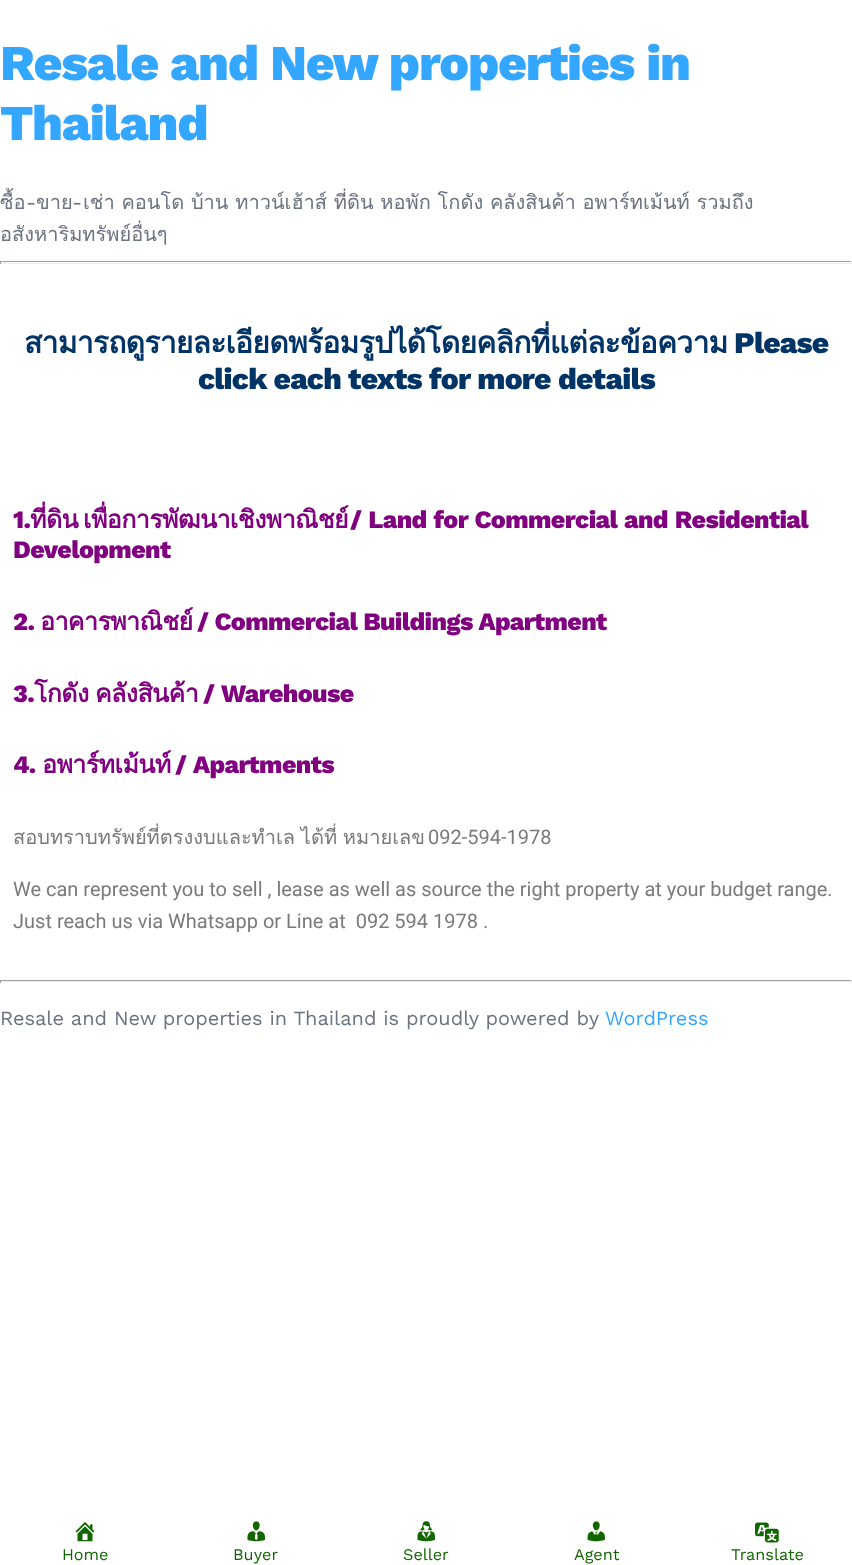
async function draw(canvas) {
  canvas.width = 852;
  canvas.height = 1565;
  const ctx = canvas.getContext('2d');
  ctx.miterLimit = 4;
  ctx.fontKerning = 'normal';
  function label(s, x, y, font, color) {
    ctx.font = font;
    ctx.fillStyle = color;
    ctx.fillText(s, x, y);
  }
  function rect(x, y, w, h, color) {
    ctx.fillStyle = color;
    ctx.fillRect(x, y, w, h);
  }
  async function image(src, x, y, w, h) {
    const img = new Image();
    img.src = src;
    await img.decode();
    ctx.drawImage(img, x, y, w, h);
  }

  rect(0, 0, 852, 1565, '#fff');
  ctx.letterSpacing = '-1.25px';
  label('Resale and New properties in', 0, 80, '800 50px Work Sans', '#33a6ff');
  label('Thailand', 0, 140, '800 50px Work Sans', '#33a6ff');
  ctx.letterSpacing = '0px';
  label('ซื้อ', 0, 209, '20px Loma', '#6b7280');
  label('-', 26, 209, '20px Work Sans', '#6b7280');
  label('ขาย', 36, 209, '20px Loma', '#6b7280');
  label('-', 72, 209, '20px Work Sans', '#6b7280');
  label('เช่า คอนโด บ้าน ทาวน์เฮ้าส์ ที่ดิน หอพัก โกดัง คลังสินค้า อพาร์ทเม้นท์ รวมถึง', 83, 209, '20px Loma', '#6b7280');
  label('อสังหาริมทรัพย์อื่นๆ', 0, 241, '20px Loma', '#6b7280');
  rect(0, 261, 852, 1, '#9f9f9f');
  rect(851, 261, 1, 3, '#eee');
  rect(0, 263, 852, 1, '#eee');
  rect(0, 261, 1, 3, '#9f9f9f');
  ctx.letterSpacing = '-0.75px';
  label('สามารถดูรายละเอียดพร้อมรูปได้โดยคลิกที่แต่ละข้อความ', 24, 353, 'bold 30px Loma', '#036');
  label('Please', 734, 353, '800 30px Work Sans', '#036');
  label('click each texts for more details', 198, 389, '800 30px Work Sans', '#036');
  ctx.letterSpacing = '-0.6px';
  label('1.', 13, 528, '800 25px Work Sans', '#800080');
  label('ที่ดิน', 30, 528, 'bold 25px Loma', '#800080');
  label('เพื่อการพัฒนาเชิงพาณิชย์', 83, 528, 'bold 25px Loma', '#800080');
  ctx.wordSpacing = '0.75px';
  label('/ Land for Commercial and Residential', 350, 528, '800 25px Work Sans', '#800080');
  ctx.wordSpacing = '0px';
  label('Development', 13, 558, '800 25px Work Sans', '#800080');
  label('2.', 13, 630, '800 25px Work Sans', '#800080');
  label('อาคารพาณิชย์', 40, 630, 'bold 25px Loma', '#800080');
  label('/ Commercial Buildings Apartment', 197, 630, '800 25px Work Sans', '#800080');
  label('3.', 13, 702, '800 25px Work Sans', '#800080');
  label('โกดัง', 34, 702, 'bold 25px Loma', '#800080');
  label('คลังสินค้า', 95, 702, 'bold 25px Loma', '#800080');
  ctx.wordSpacing = '1px';
  label('/ Warehouse', 203, 702, '800 25px Work Sans', '#800080');
  ctx.wordSpacing = '0px';
  label('4.', 13, 773, '800 25px Work Sans', '#800080');
  label('อพาร์ทเม้นท์', 42, 773, 'bold 25px Loma', '#800080');
  ctx.wordSpacing = '1px';
  label('/ Apartments', 175, 773, '800 25px Work Sans', '#800080');
  ctx.letterSpacing = '0px';
  ctx.wordSpacing = '-1px';
  label('สอบทราบทรัพย์ที่ตรงงบและทำเล ได้ที่ หมายเลข', 13, 844, '20px Loma', '#7a7a7a');
  ctx.wordSpacing = '0px';
  label('092-594-1978', 428, 844, '20px Roboto', '#7a7a7a');
  label('We can represent you to sell , lease as well as source the right property at your budget range.', 13, 896, '20px Roboto', '#7a7a7a');
  label('Just reach us via Whatsapp or Line at  092 594 1978 .', 13, 928, '20px Roboto', '#7a7a7a');
  rect(0, 980, 852, 1, '#9f9f9f');
  rect(851, 980, 1, 3, '#eee');
  rect(0, 981, 852, 1, '#eee');
  rect(0, 980, 1, 3, '#9f9f9f');
  label('Resale and New properties in Thailand is proudly powered by', 0, 1025, '20px Work Sans', '#6b7280');
  label('WordPress', 605, 1025, '20px Work Sans', '#33a6ff');
  await image('assets/img1.png', 75, 1522, 20, 20);
  label('Home', 62, 1560, '16.25px Work Sans', '#126600');
  await image('assets/img2.png', 247, 1521, 18, 21);
  label('Buyer', 233, 1560, '16.25px Work Sans', '#126600');
  await image('assets/img3.png', 417, 1521, 18, 21);
  label('Seller', 403, 1560, '16.25px Work Sans', '#126600');
  await image('assets/img4.png', 587, 1521, 18, 21);
  label('Agent', 574, 1560, '16.25px Work Sans', '#126600');
  await image('assets/img5.png', 755, 1522, 24, 21);
  label('Translate', 731, 1560, '16.25px Work Sans', '#126600');
}

draw(document.querySelector('canvas'));
